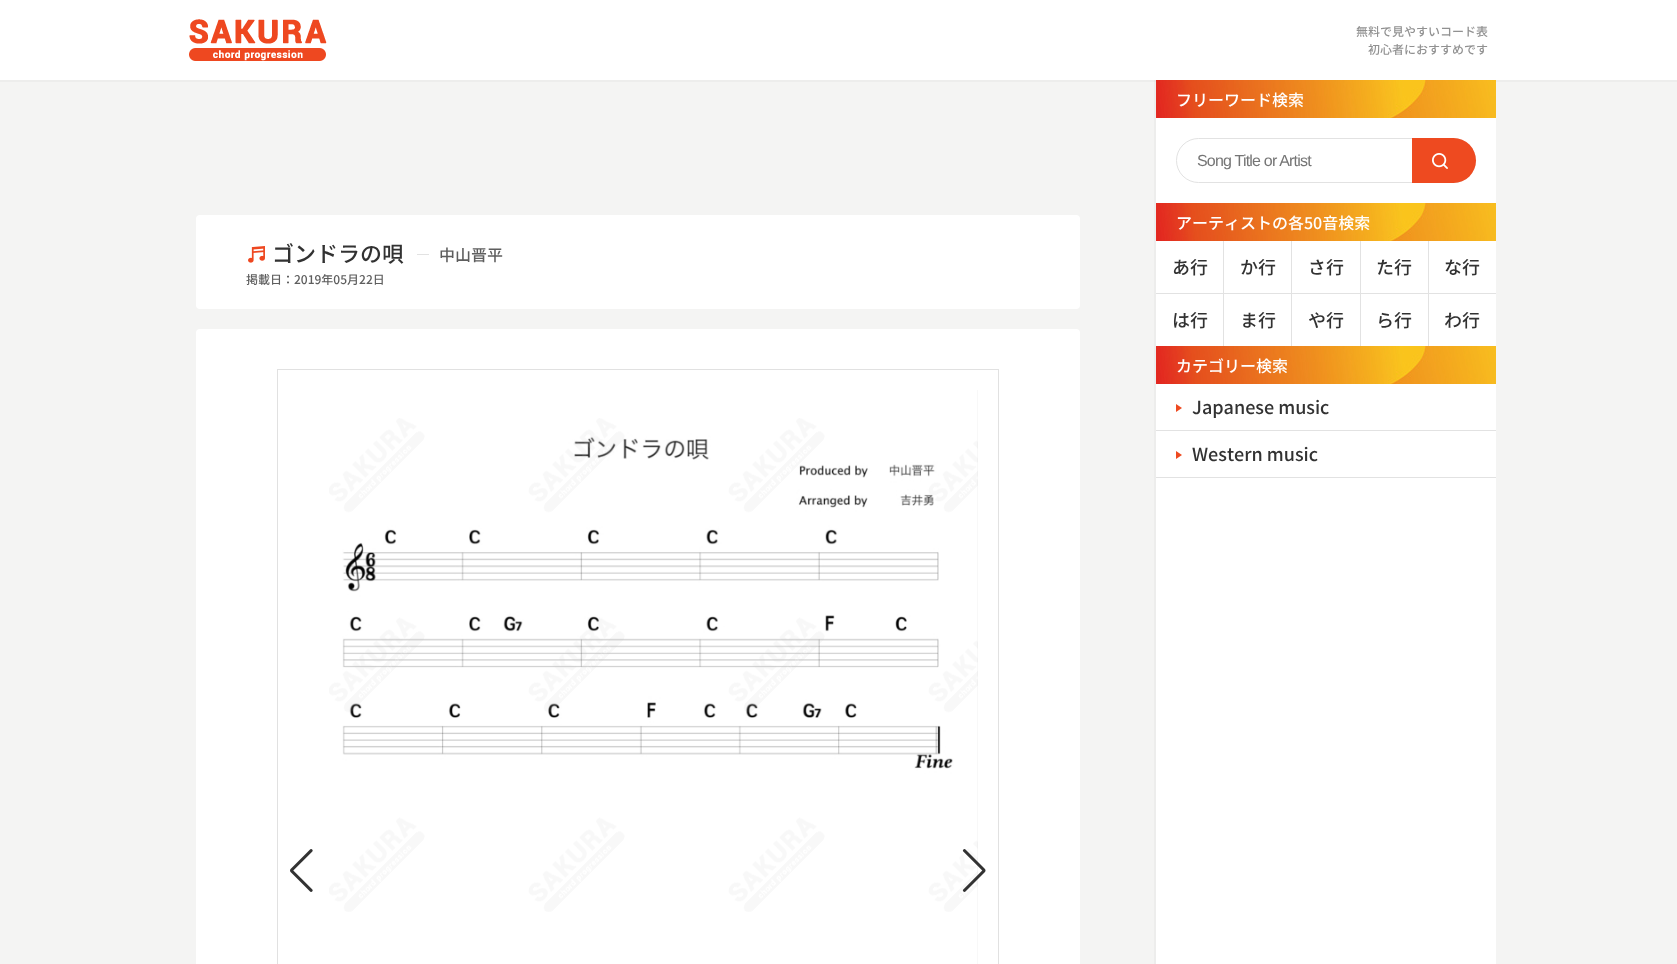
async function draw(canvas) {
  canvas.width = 1677;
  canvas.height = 964;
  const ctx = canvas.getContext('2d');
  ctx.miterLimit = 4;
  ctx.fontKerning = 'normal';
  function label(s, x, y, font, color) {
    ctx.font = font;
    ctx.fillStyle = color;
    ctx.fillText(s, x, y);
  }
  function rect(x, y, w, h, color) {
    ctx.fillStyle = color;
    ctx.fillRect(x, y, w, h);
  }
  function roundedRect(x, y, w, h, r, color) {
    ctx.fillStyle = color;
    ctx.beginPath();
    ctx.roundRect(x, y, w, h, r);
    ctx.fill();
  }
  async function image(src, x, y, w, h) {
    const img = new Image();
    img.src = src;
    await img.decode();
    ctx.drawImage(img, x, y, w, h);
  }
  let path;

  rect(0, 0, 1677, 964, '#f4f4f3');
  rect(1154, 80, 2, 884, '#ededec');
  rect(0, 0, 1677, 80, '#fff');
  await image('assets/img1.png', 189, 19, 138, 42);
  label('無料で見やすいコード表', 1356, 36, '500 12px Noto Sans CJK JP', '#919191');
  label('初心者におすすめです', 1368, 54, '500 12px Noto Sans CJK JP', '#919191');
  rect(0, 80, 1677, 2, '#ededec');
  rect(1154, 80, 2, 2, '#e6e6e5');
  roundedRect(196, 215, 884, 94, 4, '#fff');
  await image('assets/img2.png', 248, 246, 17, 17);
  label('ゴンドラの唄', 272, 262, '500 22px Noto Sans CJK JP', '#323232');
  rect(417, 254, 12, 1, '#e2e2e2');
  label('中山晋平', 439, 261, '500 16px Noto Sans CJK JP', '#5e5e5e');
  label('掲載日：2019年05月22日', 246, 284, '500 12px Noto Sans CJK JP', '#5e5e5e');
  roundedRect(196, 329, 884, 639, 4, '#fff');
  ctx.strokeStyle = '#e1e1e1';
  ctx.strokeRect(277.5, 369.5, 721, 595);
  await image('assets/img3.png', 290, 849, 23, 43);
  await image('assets/img4.png', 342, 390, 636, 574);
  await image('assets/img5.png', 329, 418, 649, 494);
  await image('assets/img6.png', 962, 849, 24, 43);
  rect(1156, 118, 340, 846, '#fff');
  await image('assets/img7.png', 1156, 80, 340, 38);
  label('フリーワード検索', 1176, 106, '500 16px Noto Sans CJK JP', '#fff');
  ctx.beginPath();
  ctx.roundRect(1176.5, 138.5, 299, 44, 22);
  ctx.strokeStyle = '#e2e2e2';
  ctx.stroke();
  ctx.letterSpacing = '-0.8px';
  label('Song Title or Artist', 1197, 166, '16px Liberation Sans', '#757575');
  ctx.fillStyle = '#ee4a20';
  ctx.beginPath();
  ctx.roundRect(1412, 138, 64, 45, [0, 22.5, 22.5, 0]);
  ctx.fill();
  await image('assets/img8.png', 1432, 153, 16, 16);
  await image('assets/img7.png', 1156, 203, 340, 38);
  ctx.letterSpacing = '0px';
  label('アーティストの各50音検索', 1176, 229, '500 16px Noto Sans CJK JP', '#fff');
  rect(1223, 241, 1, 105, '#e2e2e2');
  rect(1156, 293, 68, 1, '#e2e2e2');
  label('あ行', 1172, 274, '500 18px Noto Sans CJK JP', '#323232');
  rect(1291, 241, 1, 105, '#e2e2e2');
  rect(1224, 293, 68, 1, '#e2e2e2');
  label('か行', 1240, 274, '500 18px Noto Sans CJK JP', '#323232');
  rect(1360, 241, 1, 105, '#e2e2e2');
  rect(1292, 293, 69, 1, '#e2e2e2');
  label('さ行', 1308, 274, '500 18px Noto Sans CJK JP', '#323232');
  rect(1428, 241, 1, 105, '#e2e2e2');
  rect(1361, 293, 135, 1, '#e2e2e2');
  label('た行', 1376, 274, '500 18px Noto Sans CJK JP', '#323232');
  label('な行', 1444, 274, '500 18px Noto Sans CJK JP', '#323232');
  label('は行', 1172, 327, '500 18px Noto Sans CJK JP', '#323232');
  label('ま行', 1240, 327, '500 18px Noto Sans CJK JP', '#323232');
  label('や行', 1308, 327, '500 18px Noto Sans CJK JP', '#323232');
  label('ら行', 1376, 327, '500 18px Noto Sans CJK JP', '#323232');
  label('わ行', 1444, 327, '500 18px Noto Sans CJK JP', '#323232');
  await image('assets/img7.png', 1156, 346, 340, 38);
  label('カテゴリー検索', 1176, 372, '500 16px Noto Sans CJK JP', '#fff');
  rect(1156, 430, 340, 1, '#e2e2e2');
  ctx.fillStyle = '#ee4920';
  path = new Path2D('M1176 412V404L1182 408Z');
  ctx.fill(path);
  label('Japanese music', 1192, 414, '500 18px Noto Sans CJK JP', '#323232');
  rect(1156, 477, 340, 1, '#e2e2e2');
  ctx.fillStyle = '#ee4920';
  path = new Path2D('M1176 459V451L1182 455Z');
  ctx.fill(path);
  label('Western music', 1192, 461, '500 18px Noto Sans CJK JP', '#323232');
}

draw(document.querySelector('canvas'));
